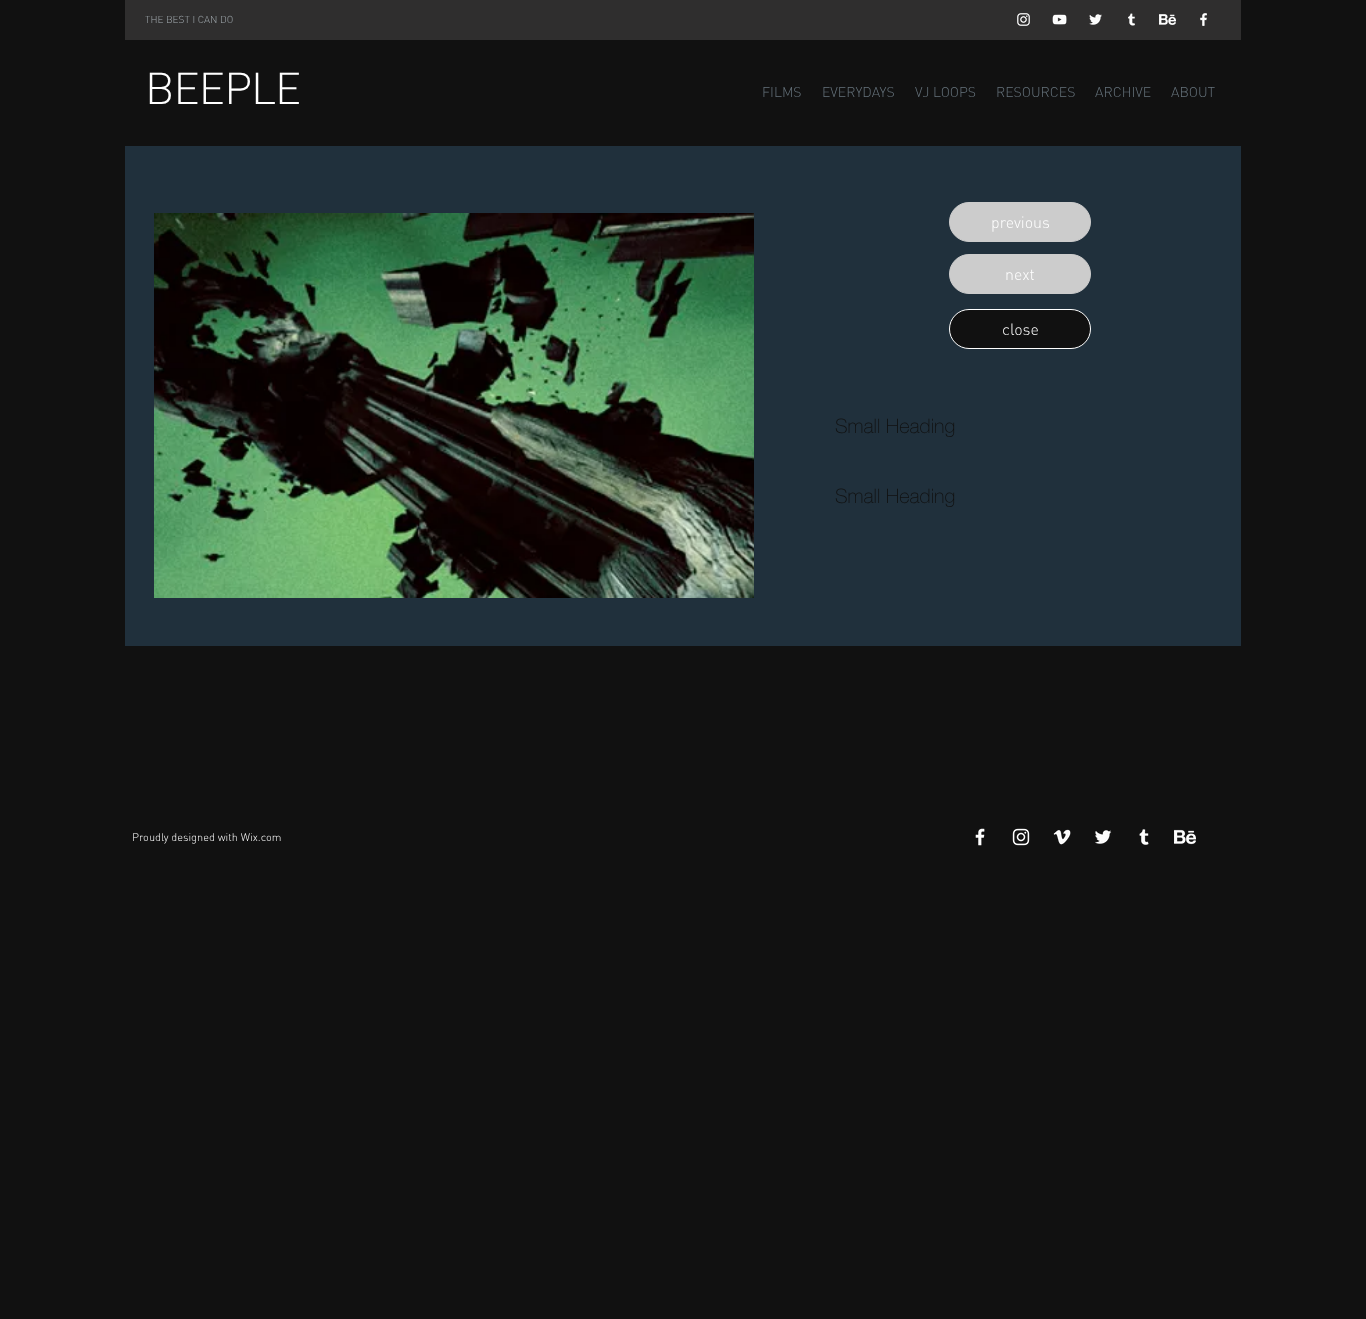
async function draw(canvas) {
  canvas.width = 1366;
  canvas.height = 1319;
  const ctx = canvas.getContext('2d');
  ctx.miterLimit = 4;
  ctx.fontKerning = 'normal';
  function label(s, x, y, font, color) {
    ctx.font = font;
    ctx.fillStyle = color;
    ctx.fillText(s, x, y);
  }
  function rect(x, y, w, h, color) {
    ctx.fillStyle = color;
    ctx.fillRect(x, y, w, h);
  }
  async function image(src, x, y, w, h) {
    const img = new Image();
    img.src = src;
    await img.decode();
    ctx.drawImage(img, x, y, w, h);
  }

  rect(0, 0, 1366, 1319, '#111');
  rect(125, 0, 1116, 40, '#2f2e2e');
  label('THE BEST I CAN DO', 145, 23, '300 10px DIN', '#a3abb0');
  await image('assets/img1.png', 1017, 13, 13, 13);
  await image('assets/img2.png', 1052, 14, 15, 11);
  await image('assets/img3.png', 1089, 14, 13, 11);
  await image('assets/img4.png', 1128, 13, 7, 13);
  await image('assets/img5.png', 1159, 14, 17, 11);
  await image('assets/img6.png', 1200, 13, 7, 13);
  ctx.letterSpacing = '-1px';
  label('BEEPLE', 145, 104, '300 44px DIN', '#fff');
  ctx.letterSpacing = '0px';
  label('FILMS', 762, 97, '300 14px DIN', '#66737c');
  label('EVERYDAYS', 822, 97, '300 14px DIN', '#66737c');
  label('VJ LOOPS', 915, 97, '300 14px DIN', '#66737c');
  label('RESOURCES', 996, 97, '300 14px DIN', '#66737c');
  label('ARCHIVE', 1095, 97, '300 14px DIN', '#66737c');
  label('ABOUT', 1171, 97, '300 14px DIN', '#66737c');
  rect(125, 146, 1116, 500, '#20303c');
  await image('assets/img7.png', 154, 213, 600, 385);
  ctx.fillStyle = '#ccc';
  ctx.beginPath();
  ctx.roundRect(949.5, 202.5, 141, 39, 19.5);
  ctx.fill();
  ctx.strokeStyle = '#ccc';
  ctx.stroke();
  label('previous', 991, 228, '300 16px DIN', '#fff');
  ctx.fillStyle = '#ccc';
  ctx.beginPath();
  ctx.roundRect(949.5, 254.5, 141, 39, 19.5);
  ctx.fill();
  ctx.stroke();
  label('next', 1005, 280, '300 16px DIN', '#fff');
  ctx.fillStyle = '#111';
  ctx.beginPath();
  ctx.roundRect(949.5, 309.5, 141, 39, 19.5);
  ctx.fill();
  ctx.strokeStyle = '#fff';
  ctx.stroke();
  label('close', 1002, 335, '300 16px DIN', '#fff');
  label('Small Heading', 835, 433, '100 20px "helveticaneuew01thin"', '#111');
  label('Small Heading', 835, 503, '100 20px "helveticaneuew01thin"', '#111');
  label('Proudly designed with Wix.com', 132, 841, '300 11px DIN', '#fff');
  await image('assets/img8.png', 975, 828, 10, 18);
  await image('assets/img9.png', 1012, 828, 18, 18);
  await image('assets/img10.png', 1053, 829, 18, 16);
  await image('assets/img11.png', 1095, 830, 17, 14);
  await image('assets/img12.png', 1139, 829, 10, 16);
  await image('assets/img13.png', 1174, 829, 22, 16);
}

draw(document.querySelector('canvas'));
